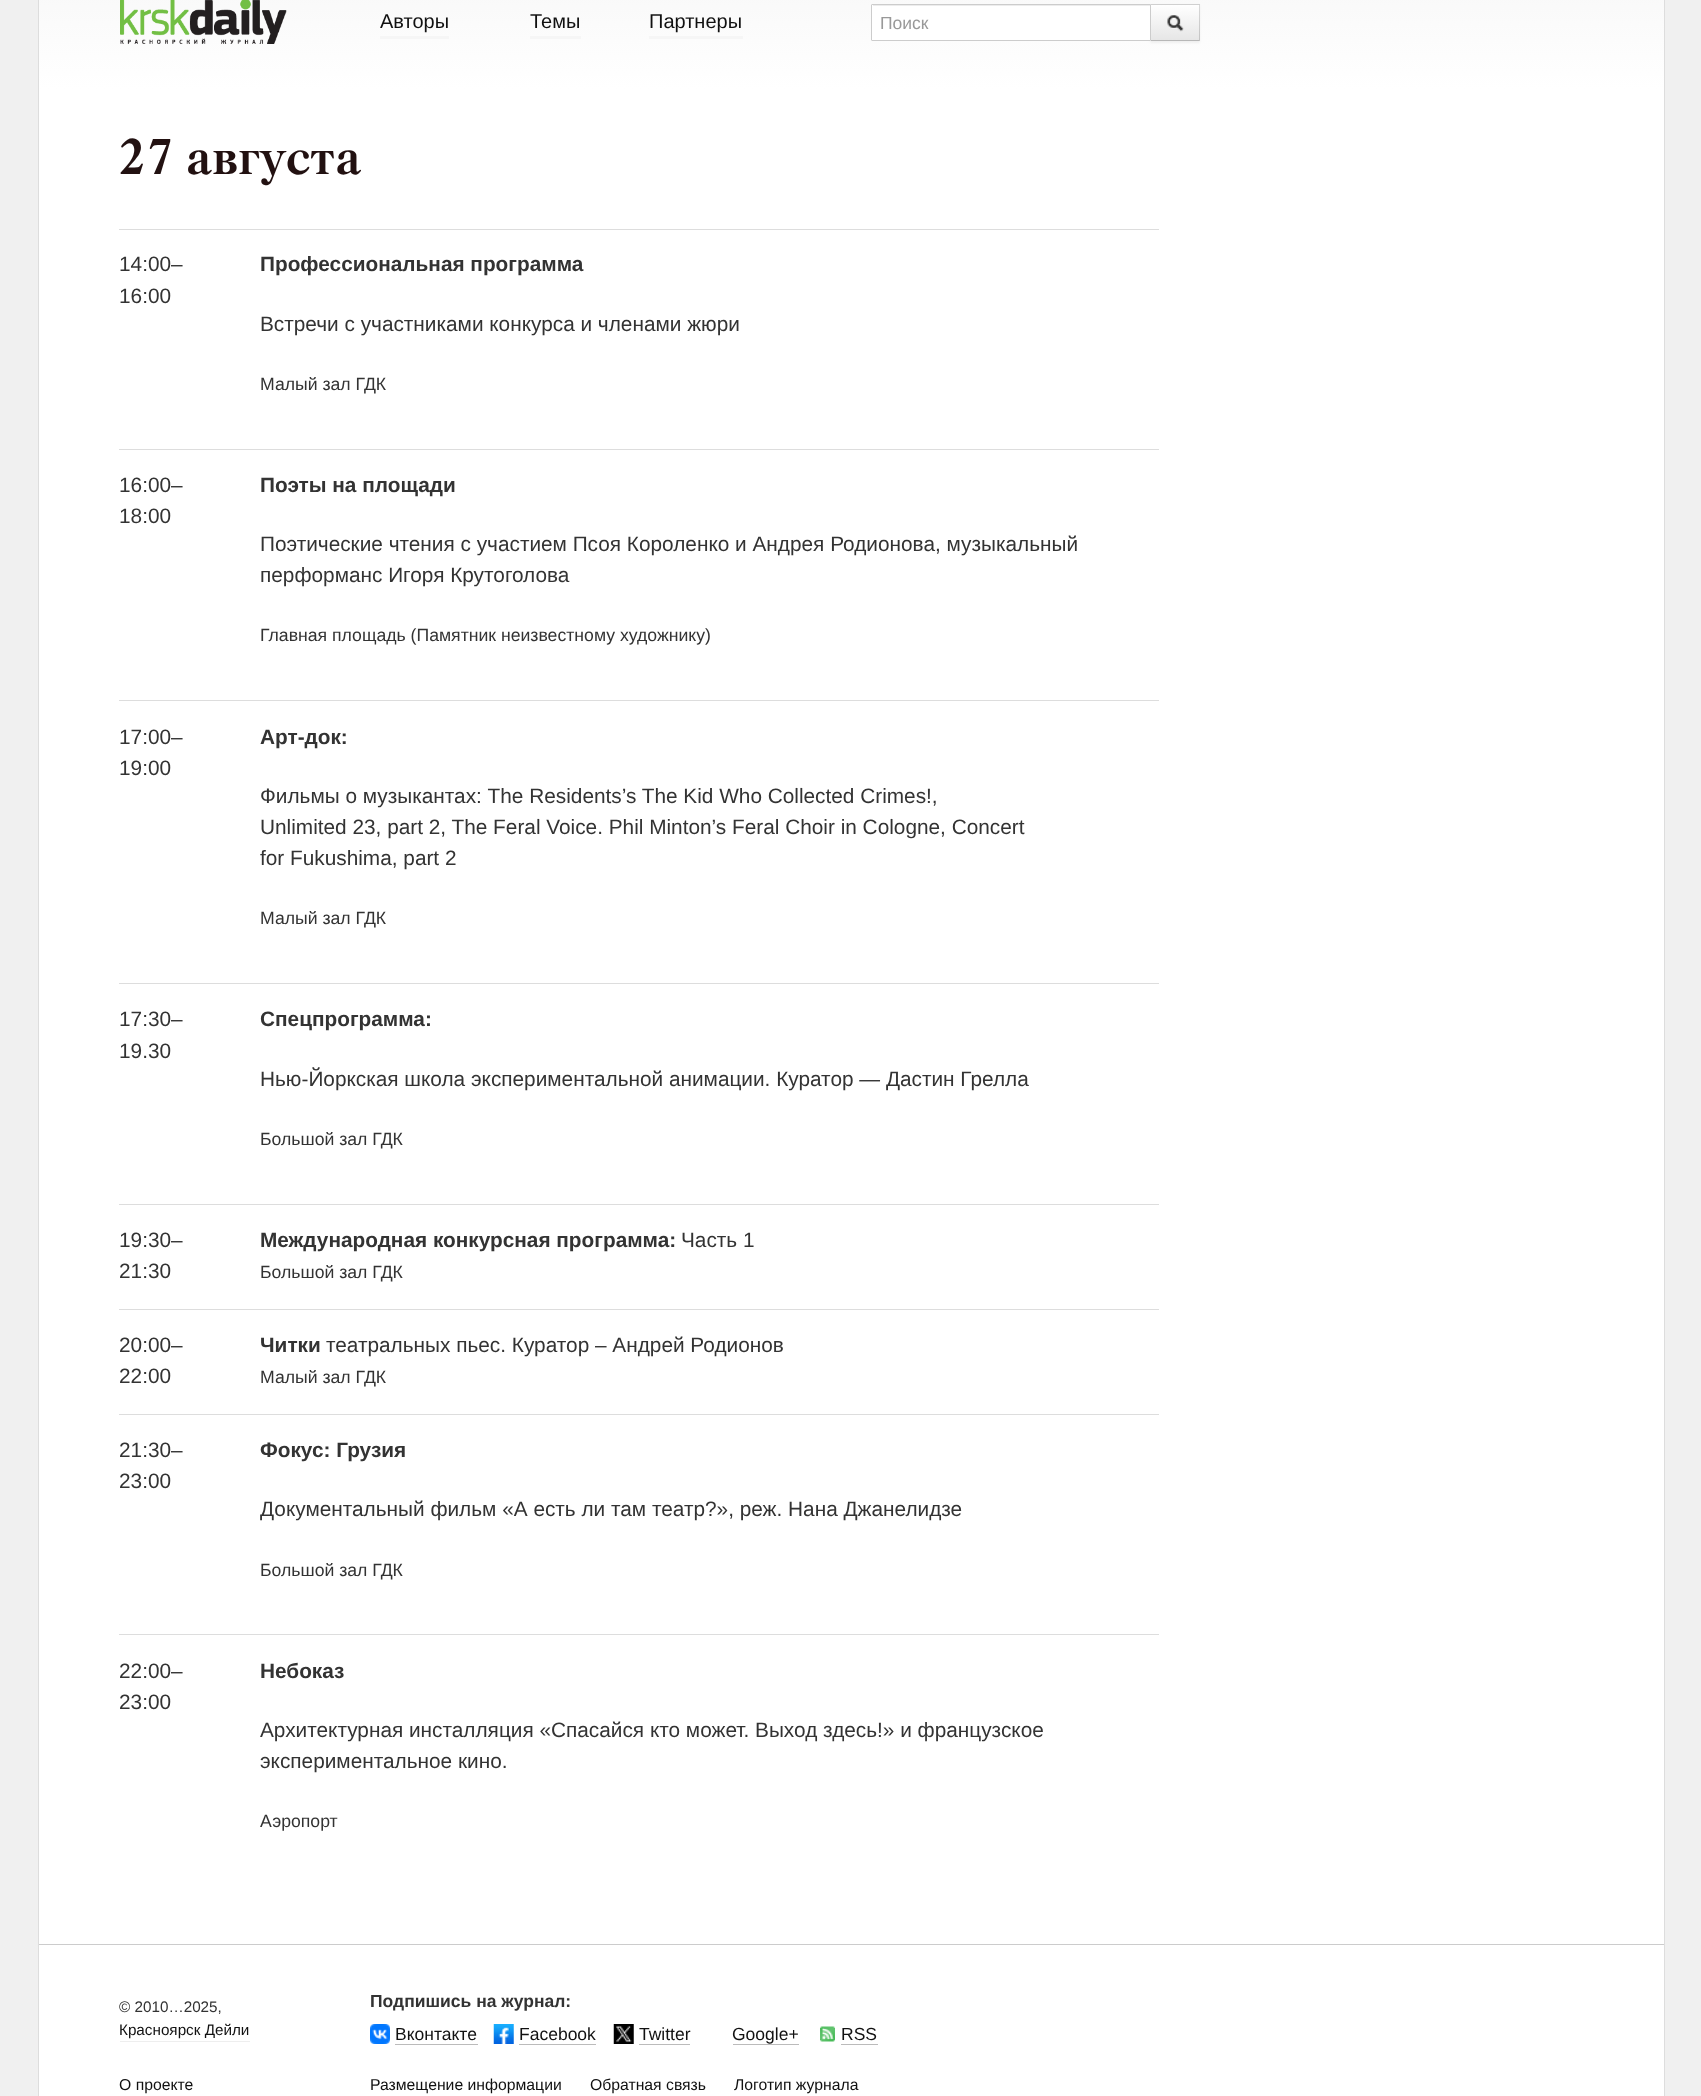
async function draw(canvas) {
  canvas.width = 1701;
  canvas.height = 2096;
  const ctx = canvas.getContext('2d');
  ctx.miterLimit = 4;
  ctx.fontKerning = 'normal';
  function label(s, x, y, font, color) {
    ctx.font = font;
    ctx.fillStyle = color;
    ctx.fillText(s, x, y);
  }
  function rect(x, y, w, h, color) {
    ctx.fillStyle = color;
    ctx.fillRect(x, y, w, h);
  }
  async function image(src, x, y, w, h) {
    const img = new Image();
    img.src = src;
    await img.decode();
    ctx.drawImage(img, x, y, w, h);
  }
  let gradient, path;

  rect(0, 0, 1701, 2096, '#f0f0f0');
  rect(39, 89, 1625, 2007, '#fff');
  rect(1664, 0, 1, 2096, '#ddd');
  rect(38, 0, 1, 2096, '#ddd');
  gradient = ctx.createLinearGradient(851, -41, 851, 89);
  gradient.addColorStop(0, '#f7f7f7');
  gradient.addColorStop(1, '#fff');
  ctx.fillStyle = gradient;
  ctx.fillRect(39, 0, 1625, 89);
  await image('assets/img1.png', 120, 0, 167, 44);
  rect(380, 36, 69, 3, '#f6f6f6');
  label('Авторы', 380, 28, '20px Liberation Sans', '#111');
  rect(530, 36, 51, 3, '#f6f6f6');
  label('Темы', 530, 28, '20px Liberation Sans', '#111');
  rect(649, 36, 94, 3, '#f6f6f6');
  label('Партнеры', 649, 28, '20px Liberation Sans', '#111');
  ctx.fillStyle = '#0000000d';
  ctx.filter = 'blur(1px)';
  ctx.beginPath();
  ctx.roundRect(1150, 5, 50, 38, 1);
  ctx.fill();
  ctx.filter = 'none';
  ctx.fillStyle = '#f5f5f5';
  ctx.beginPath();
  ctx.roundRect(1150, 4, 50, 37, [0, 1, 1, 0]);
  ctx.fill();
  ctx.fillStyle = '#d0d0d0';
  path = new Path2D('M1200 4H1150L1151 5H1199Z');
  ctx.fill(path);
  gradient = ctx.createLinearGradient(1175, 5, 1175, 40);
  gradient.addColorStop(0, '#fff');
  gradient.addColorStop(1, '#e6e6e6');
  ctx.fillStyle = gradient;
  ctx.fillRect(1151, 5, 49, 35);
  ctx.fillStyle = '#00000026';
  path = new Path2D('M1199.5 4L1200 4.5V34V40L1199.5 41L1199 40V5Z');
  ctx.fill(path);
  ctx.fillStyle = '#00000040';
  path = new Path2D('M1200 41H1150L1151 40H1199Z');
  ctx.fill(path);
  ctx.fillStyle = '#fff';
  ctx.beginPath();
  ctx.roundRect(871, 4, 280, 37, [1, 0, 0, 1]);
  ctx.fill();
  rect(873, 5, 277, 1, '#ececec');
  ctx.beginPath();
  ctx.roundRect(871.5, 4.5, 279, 36, [0.5, 0, 0, 0.5]);
  ctx.strokeStyle = '#ccc';
  ctx.stroke();
  label('Поиск', 880, 29, '17.5px Liberation Sans', '#999');
  await image('assets/img2.png', 1167, 15, 17, 17);
  label('27 августа', 119, 174, 'bold 50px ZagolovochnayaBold', '#211');
  label('14:00–', 119, 271, '20.8px Liberation Sans', '#333');
  label('16:00', 119, 303, '20.8px Liberation Sans', '#333');
  rect(119, 229, 1040, 1, '#ddd');
  label('Профессиональная программа', 260, 271, 'bold 20.8px Liberation Sans', '#333');
  label('Встречи с участниками конкурса и членами жюри', 260, 331, '20.8px Liberation Sans', '#333');
  label('Малый зал ГДК', 260, 390, '17.65px Liberation Sans', '#333');
  label('16:00–', 119, 492, '20.8px Liberation Sans', '#333');
  label('18:00', 119, 523, '20.8px Liberation Sans', '#333');
  rect(119, 449, 1040, 1, '#ddd');
  label('Поэты на площади', 260, 492, 'bold 20.8px Liberation Sans', '#333');
  label('Поэтические чтения с участием Псоя Короленко и Андрея Родионова, музыкальный', 260, 551, '20.8px Liberation Sans', '#333');
  label('перформанс Игоря Крутоголова', 260, 582, '20.8px Liberation Sans', '#333');
  label('Главная площадь (Памятник неизвестному художнику)', 260, 641, '17.65px Liberation Sans', '#333');
  label('17:00–', 119, 744, '20.8px Liberation Sans', '#333');
  label('19:00', 119, 775, '20.8px Liberation Sans', '#333');
  rect(119, 700, 1040, 1, '#ddd');
  label('Арт-док:', 260, 744, 'bold 20.8px Liberation Sans', '#333');
  label('Фильмы о музыкантах: The Residents’s The Kid Who Collected Crimes!,', 260, 803, '20.8px Liberation Sans', '#333');
  label('Unlimited 23, part 2, The Feral Voice. Phil Minton’s Feral Choir in Cologne, Concert', 260, 834, '20.8px Liberation Sans', '#333');
  label('for Fukushima, part 2', 260, 865, '20.8px Liberation Sans', '#333');
  label('Малый зал ГДК', 260, 924, '17.65px Liberation Sans', '#333');
  label('17:30–', 119, 1026, '20.8px Liberation Sans', '#333');
  label('19.30', 119, 1058, '20.8px Liberation Sans', '#333');
  rect(119, 983, 1040, 1, '#ddd');
  label('Спецпрограмма:', 260, 1026, 'bold 20.8px Liberation Sans', '#333');
  label('Нью-Йоркская школа экспериментальной анимации. Куратор — Дастин Грелла', 260, 1086, '20.8px Liberation Sans', '#333');
  label('Большой зал ГДК', 260, 1145, '17.65px Liberation Sans', '#333');
  label('19:30–', 119, 1247, '20.8px Liberation Sans', '#333');
  label('21:30', 119, 1278, '20.8px Liberation Sans', '#333');
  rect(119, 1204, 1040, 1, '#ddd');
  label('Международная конкурсная программа:', 260, 1247, 'bold 20.8px Liberation Sans', '#333');
  label('Часть 1', 681, 1247, '20.8px Liberation Sans', '#333');
  label('Большой зал ГДК', 260, 1278, '17.65px Liberation Sans', '#333');
  label('20:00–', 119, 1352, '20.8px Liberation Sans', '#333');
  label('22:00', 119, 1383, '20.8px Liberation Sans', '#333');
  rect(119, 1309, 1040, 1, '#ddd');
  label('Читки', 260, 1352, 'bold 20.8px Liberation Sans', '#333');
  label('театральных пьес. Куратор – Андрей Родионов', 326, 1352, '20.8px Liberation Sans', '#333');
  label('Малый зал ГДК', 260, 1383, '17.65px Liberation Sans', '#333');
  label('21:30–', 119, 1457, '20.8px Liberation Sans', '#333');
  label('23:00', 119, 1488, '20.8px Liberation Sans', '#333');
  rect(119, 1414, 1040, 1, '#ddd');
  label('Фокус: Грузия', 260, 1457, 'bold 20.8px Liberation Sans', '#333');
  label('Документальный фильм «А есть ли там театр?», реж. Нана Джанелидзе', 260, 1516, '20.8px Liberation Sans', '#333');
  label('Большой зал ГДК', 260, 1576, '17.65px Liberation Sans', '#333');
  label('22:00–', 119, 1678, '20.8px Liberation Sans', '#333');
  label('23:00', 119, 1709, '20.8px Liberation Sans', '#333');
  rect(119, 1634, 1040, 1, '#ddd');
  label('Небоказ', 260, 1678, 'bold 20.8px Liberation Sans', '#333');
  label('Архитектурная инсталляция «Спасайся кто может. Выход здесь!» и французское', 260, 1737, '20.8px Liberation Sans', '#333');
  label('экспериментальное кино.', 260, 1768, '20.8px Liberation Sans', '#333');
  label('Аэропорт', 260, 1827, '17.65px Liberation Sans', '#333');
  rect(39, 1944, 1625, 1, '#ccc');
  label('© 2010…2025,', 119, 2012, '15.25px Liberation Sans', '#333');
  rect(120, 2041, 130, 1, '#eee');
  label('Красноярск Дейли', 119, 2035, '15.25px Liberation Sans', '#111');
  label('Подпишись на журнал:', 370, 2007, 'bold 17.5px Liberation Sans', '#333');
  await image('assets/img3.png', 370, 2024, 20, 20);
  label('Вконтакте', 395, 2040, '17.5px Liberation Sans', '#111');
  rect(395, 2044, 83, 1, '#bbb');
  await image('assets/img4.png', 493, 2024, 21, 20);
  label('Facebook', 519, 2040, '17.5px Liberation Sans', '#111');
  rect(519, 2044, 77, 1, '#bbb');
  await image('assets/img5.png', 613, 2024, 21, 20);
  label('Twitter', 639, 2040, '17.5px Liberation Sans', '#111');
  rect(639, 2044, 51, 1, '#bbb');
  label('Google+', 732, 2040, '17.5px Liberation Sans', '#111');
  rect(733, 2044, 66, 1, '#bbb');
  await image('assets/img6.png', 820, 2026, 15, 16);
  label('RSS', 841, 2040, '17.5px Liberation Sans', '#111');
  rect(841, 2044, 37, 1, '#bbb');
  label('О проекте', 119, 2090, '15.75px Liberation Sans', '#111');
  label('Размещение информации', 370, 2090, '15.75px Liberation Sans', '#111');
  label('Обратная связь', 590, 2090, '15.75px Liberation Sans', '#111');
  label('Логотип журнала', 734, 2090, '15.75px Liberation Sans', '#111');
}

draw(document.querySelector('canvas'));
